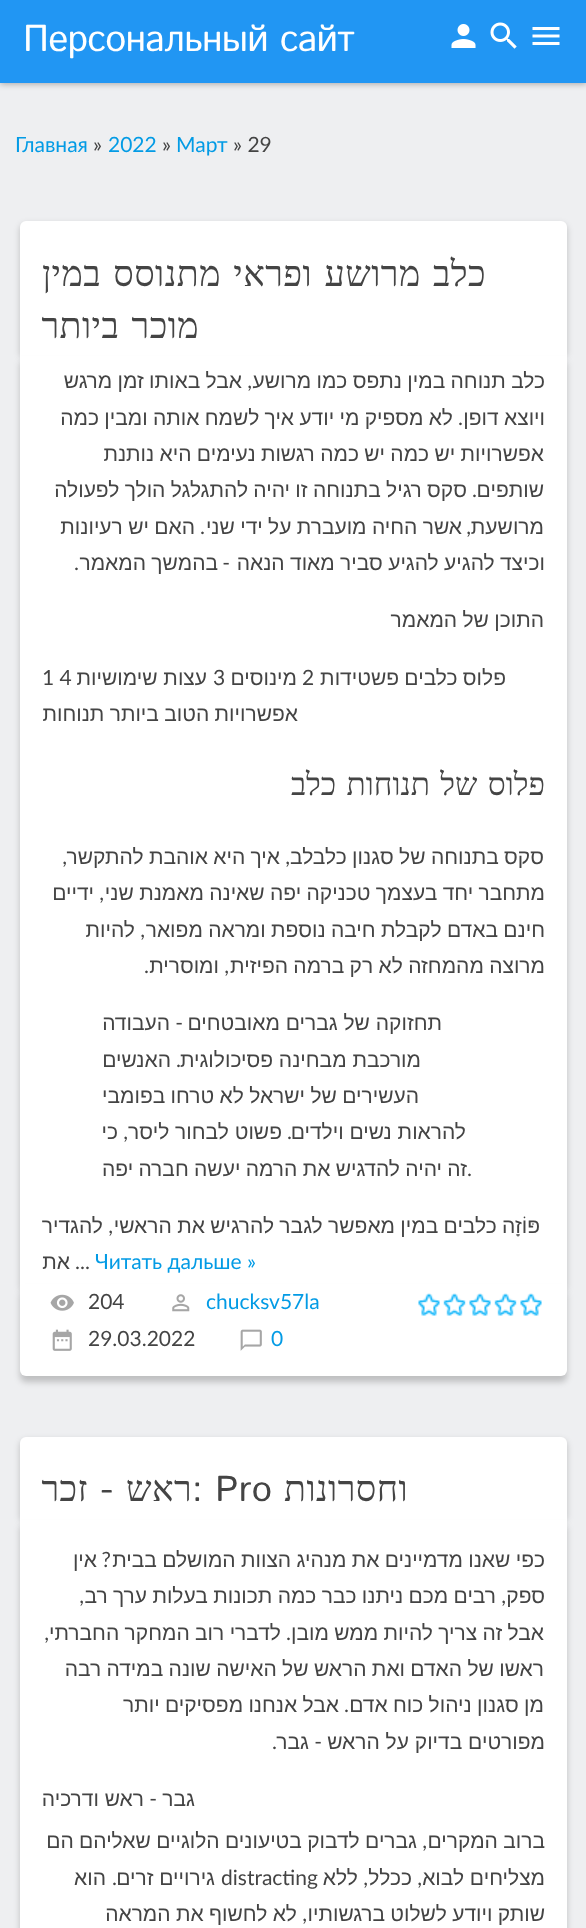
async function draw(canvas) {
  canvas.width = 586;
  canvas.height = 1928;
  const ctx = canvas.getContext('2d');
  ctx.miterLimit = 4;
  ctx.fontKerning = 'normal';
  function label(s, x, y, font, color) {
    ctx.font = font;
    ctx.fillStyle = color;
    ctx.fillText(s, x, y);
  }
  function rect(x, y, w, h, color) {
    ctx.fillStyle = color;
    ctx.fillRect(x, y, w, h);
  }
  async function image(src, x, y, w, h) {
    const img = new Image();
    img.src = src;
    await img.decode();
    ctx.drawImage(img, x, y, w, h);
  }

  rect(0, 0, 586, 1928, '#eeeff1');
  ctx.fillStyle = '#0000004d';
  ctx.filter = 'blur(3px)';
  ctx.beginPath();
  ctx.rect(0, 2, 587, 82);
  ctx.fill();
  ctx.filter = 'none';
  rect(0, 0, 586, 83, '#2196f3');
  await image('assets/img1.png', 532, 27, 28, 18);
  await image('assets/img2.png', 490, 22, 27, 27);
  await image('assets/img3.png', 451, 24, 25, 24);
  ctx.letterSpacing = '-0.75px';
  label('Персональный сайт', 23, 51, '37.5px Istok Web', '#fff');
  ctx.letterSpacing = '0px';
  label('» 29', 233, 152, '21px Lato', '#444');
  label('Март', 176, 152, '21px Lato', '#039be5');
  label('»', 162, 152, '21px Lato', '#444');
  label('2022', 108, 152, '21px Lato', '#039be5');
  label('»', 93, 152, '21px Lato', '#444');
  label('Главная', 15, 152, '21px Lato', '#039be5');
  ctx.fillStyle = '#01010133';
  ctx.filter = 'blur(3px)';
  ctx.beginPath();
  ctx.roundRect(20, 224, 547, 135, 6);
  ctx.fill();
  ctx.filter = 'none';
  ctx.fillStyle = '#fff';
  ctx.beginPath();
  ctx.roundRect(20, 221, 547, 135, [6, 6, 0, 0]);
  ctx.fill();
  ctx.letterSpacing = '0.4px';
  ctx.wordSpacing = '3px';
  ctx.direction = 'rtl';
  label('כלב מרושע ופראי מתנוסס במין', 486, 286, '36px Liberation Serif', '#444');
  label('מוכר ביותר', 199, 338, '36px Liberation Serif', '#444');
  ctx.fillStyle = '#01010133';
  ctx.filter = 'blur(3px)';
  ctx.beginPath();
  ctx.rect(20, 362, 547, 928);
  ctx.fill();
  ctx.filter = 'none';
  rect(20, 356, 547, 928, '#fff');
  ctx.letterSpacing = '0px';
  ctx.wordSpacing = '-0.5px';
  label('כלב תנוחה במין נתפס כמו מרושע', 545, 388, '21px Liberation Sans', '#444');
  ctx.wordSpacing = '0px';
  label(',', 252, 388, '21px Lato', '#444');
  ctx.wordSpacing = '-0.5px';
  label('אבל באותו זמן מרגש', 242, 388, '21px Liberation Sans', '#444');
  label('ויוצא דופן', 545, 425, '21px Liberation Sans', '#444');
  ctx.wordSpacing = '0px';
  label('.', 463, 425, '21px Lato', '#444');
  ctx.wordSpacing = '-0.5px';
  label('לא מספיק מי יודע איך לשמח אותה ומבין כמה', 453, 425, '21px Liberation Sans', '#444');
  label('אפשרויות יש כמה יש כמה רגשות נעימים היא נותנת', 544, 461, '21px Liberation Sans', '#444');
  ctx.wordSpacing = '0px';
  label('שותפים', 544, 497, '21px Liberation Sans', '#444');
  label('.', 477, 497, '21px Lato', '#444');
  ctx.wordSpacing = '-0.5px';
  label('סקס רגיל בתנוחה זו יהיה להתגלגל הולך לפעולה', 467, 497, '21px Liberation Sans', '#444');
  ctx.wordSpacing = '0px';
  label('מרושעת', 544, 534, '21px Liberation Sans', '#444');
  label(',', 471, 534, '21px Lato', '#444');
  ctx.wordSpacing = '-0.5px';
  label('אשר החיה מועברת על ידי שני', 462, 534, '21px Liberation Sans', '#444');
  ctx.wordSpacing = '0px';
  label('.', 205, 534, '21px Lato', '#444');
  ctx.wordSpacing = '-0.5px';
  label('האם יש רעיונות', 195, 534, '21px Liberation Sans', '#444');
  label('וכיצד להגיע להגיע סביר מאוד הנאה', 545, 570, '21px Liberation Sans', '#444');
  ctx.wordSpacing = '0px';
  label('-', 230, 570, '21px Lato', '#444');
  ctx.wordSpacing = '-0.5px';
  label('בהמשך המאמר', 218, 570, '21px Liberation Sans', '#444');
  ctx.wordSpacing = '0px';
  label('.', 79, 570, '21px Lato', '#444');
  ctx.wordSpacing = '-0.5px';
  label('התוכן של המאמר', 544, 627, '21px Liberation Sans', '#444');
  label('פלוס כלבים פשטידות', 506, 685, '21px Liberation Sans', '#444');
  ctx.wordSpacing = '0px';
  ctx.direction = 'ltr';
  label('2', 302, 685, '21px Lato', '#444');
  ctx.direction = 'rtl';
  label('מינוסים', 297, 685, '21px Liberation Sans', '#444');
  ctx.direction = 'ltr';
  label('3', 213, 685, '21px Lato', '#444');
  ctx.direction = 'rtl';
  label('עצות שימושיות', 207, 685, '21px Liberation Sans', '#444');
  ctx.direction = 'ltr';
  label('1 4', 42, 685, '21px Lato', '#444');
  ctx.wordSpacing = '-0.5px';
  ctx.direction = 'rtl';
  label('אפשרויות הטוב ביותר תנוחות', 298, 721, '21px Liberation Sans', '#444');
  ctx.wordSpacing = '2.5px';
  label('פלוס של תנוחות כלב', 545, 795, '31.5px Liberation Serif', '#444');
  ctx.wordSpacing = '-0.5px';
  label('סקס בתנוחה של סגנון כלבלב', 544, 864, '21px Liberation Sans', '#444');
  ctx.wordSpacing = '0px';
  label(',', 290, 864, '21px Lato', '#444');
  ctx.wordSpacing = '-0.5px';
  label('איך היא אוהבת להתקשר', 280, 864, '21px Liberation Sans', '#444');
  ctx.wordSpacing = '0px';
  label(',', 67, 864, '21px Lato', '#444');
  ctx.wordSpacing = '-0.5px';
  label('מתחבר יחד בעצמך טכניקה יפה שאינה מאמנת שני', 545, 900, '21px Liberation Sans', '#444');
  ctx.wordSpacing = '0px';
  label(',', 104, 900, '21px Lato', '#444');
  label('ידיים', 94, 900, '21px Liberation Sans', '#444');
  ctx.wordSpacing = '-0.5px';
  label('חינם באדם לקבלת חיבה נוספת ומראה מפואר', 545, 937, '21px Liberation Sans', '#444');
  ctx.wordSpacing = '0px';
  label(',', 145, 937, '21px Lato', '#444');
  label('להיות', 135, 937, '21px Liberation Sans', '#444');
  ctx.wordSpacing = '-0.5px';
  label('מרוצה מהמחזה לא רק ברמה הפיזית', 545, 973, '21px Liberation Sans', '#444');
  ctx.wordSpacing = '0px';
  label(',', 229, 973, '21px Lato', '#444');
  label('ומוסרית', 219, 973, '21px Liberation Sans', '#444');
  label('.', 149, 973, '21px Lato', '#444');
  label('תחזוקה של גברים מאובטחים', 442, 1030, '21px Liberation Sans', '#444');
  label('-', 183, 1030, '21px Lato', '#444');
  label('העבודה', 170, 1030, '21px Liberation Sans', '#444');
  label('מורכבת מבחינה פסיכולוגית', 421, 1067, '21px Liberation Sans', '#444');
  label('.', 181, 1067, '21px Lato', '#444');
  label('האנשים', 171, 1067, '21px Liberation Sans', '#444');
  ctx.wordSpacing = '-0.5px';
  label('העשירים של ישראל לא טרחו בפומבי', 419, 1103, '21px Liberation Sans', '#444');
  ctx.wordSpacing = '0px';
  label('להראות נשים וילדים', 466, 1139, '21px Liberation Sans', '#444');
  label('.', 292, 1139, '21px Lato', '#444');
  label('פשוט לבחור ליסר', 282, 1139, '21px Liberation Sans', '#444');
  label(',', 128, 1139, '21px Lato', '#444');
  label('כי', 118, 1139, '21px Liberation Sans', '#444');
  ctx.wordSpacing = '-0.5px';
  label('זה יהיה להדגיש את הרמה יעשה חברה יפה', 467, 1176, '21px Liberation Sans', '#444');
  ctx.wordSpacing = '0px';
  ctx.direction = 'ltr';
  label('.', 467, 1176, '21px Lato', '#444');
  ctx.wordSpacing = '-0.5px';
  ctx.direction = 'rtl';
  label('פּוֹזָה כלבים במין מאפשר לגבר להרגיש את הראשי', 540, 1233, '21px Liberation Sans', '#444');
  ctx.wordSpacing = '0px';
  label(',', 113, 1233, '21px Lato', '#444');
  label('להגדיר', 103, 1233, '21px Liberation Sans', '#444');
  ctx.direction = 'ltr';
  label('Читать дальше »', 95, 1269, '21px Lato', '#039be5');
  label('...', 75, 1269, '21px Lato', '#444');
  ctx.direction = 'rtl';
  label('את', 70, 1269, '21px Liberation Sans', '#444');
  ctx.fillStyle = '#01010133';
  ctx.filter = 'blur(3px)';
  ctx.beginPath();
  ctx.roundRect(20, 1290, 547, 92, 6);
  ctx.fill();
  ctx.filter = 'none';
  ctx.fillStyle = '#fff';
  ctx.beginPath();
  ctx.roundRect(20, 1284, 547, 92, [0, 0, 6, 6]);
  ctx.fill();
  await image('assets/img4.png', 418, 1293, 124, 23);
  ctx.direction = 'ltr';
  label('chucksv57la', 206, 1309, '21px Lato', '#039be5');
  await image('assets/img5.png', 172, 1294, 18, 18);
  label('204', 88, 1309, '21px Lato', '#444');
  await image('assets/img6.png', 50, 1294, 24, 17);
  label('0', 271, 1346, '21px Lato', '#039be5');
  await image('assets/img7.png', 240, 1329, 22, 22);
  label('29.03.2022', 88, 1346, '21px Lato', '#444');
  await image('assets/img8.png', 52, 1329, 20, 22);
  ctx.fillStyle = '#01010133';
  ctx.filter = 'blur(3px)';
  ctx.beginPath();
  ctx.roundRect(20, 1440, 547, 83, 6);
  ctx.fill();
  ctx.filter = 'none';
  ctx.fillStyle = '#fff';
  ctx.beginPath();
  ctx.roundRect(20, 1437, 547, 83, [6, 6, 0, 0]);
  ctx.fill();
  ctx.letterSpacing = '0.4px';
  ctx.direction = 'rtl';
  label('וחסרונות', 408, 1501, '36px Liberation Serif', '#444');
  ctx.direction = 'ltr';
  label(': Pro', 192, 1501, '36px Istok Web', '#444');
  ctx.direction = 'rtl';
  label('ראש', 192, 1501, '36px Liberation Serif', '#444');
  label('-', 113, 1501, '36px Istok Web', '#444');
  label('זכר', 88, 1501, '36px Liberation Serif', '#444');
  ctx.fillStyle = '#01010133';
  ctx.filter = 'blur(3px)';
  ctx.beginPath();
  ctx.rect(20, 1526, 547, 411);
  ctx.fill();
  ctx.filter = 'none';
  rect(20, 1520, 547, 408, '#fff');
  ctx.letterSpacing = '0px';
  ctx.wordSpacing = '-0.5px';
  label('כפי שאנו מדמיינים את מנהיג הצוות המושלם בבית', 545, 1567, '21px Liberation Sans', '#444');
  ctx.wordSpacing = '0px';
  label('?', 111, 1567, '21px Lato', '#444');
  label('אין', 97, 1567, '21px Liberation Sans', '#444');
  label('ספק', 545, 1603, '21px Liberation Sans', '#444');
  label(',', 506, 1603, '21px Lato', '#444');
  ctx.wordSpacing = '-0.5px';
  label('רבים מכם ניתנו כבר כמה תכונות בעלות ערך רב', 496, 1603, '21px Liberation Sans', '#444');
  ctx.wordSpacing = '0px';
  label(',', 84, 1603, '21px Lato', '#444');
  ctx.wordSpacing = '-0.5px';
  label('אבל זה צריך להיות ממש מובן', 544, 1640, '21px Liberation Sans', '#444');
  ctx.wordSpacing = '0px';
  label('.', 291, 1640, '21px Lato', '#444');
  ctx.wordSpacing = '-0.5px';
  label('לדברי רוב המחקר החברתי', 281, 1640, '21px Liberation Sans', '#444');
  ctx.wordSpacing = '0px';
  label(',', 49, 1640, '21px Lato', '#444');
  ctx.wordSpacing = '-0.5px';
  label('ראשו של האדם ואת הראש של האישה שונה במידה רבה', 544, 1676, '21px Liberation Sans', '#444');
  label('מן סגנון ניהול כוח אדם', 544, 1712, '21px Liberation Sans', '#444');
  ctx.wordSpacing = '0px';
  label('.', 349, 1712, '21px Lato', '#444');
  ctx.wordSpacing = '-0.5px';
  label('אבל אנחנו מפסיקים יותר', 339, 1712, '21px Liberation Sans', '#444');
  ctx.wordSpacing = '0px';
  label('מפורטים בדיוק על הראש', 545, 1749, '21px Liberation Sans', '#444');
  label('-', 322, 1749, '21px Lato', '#444');
  label('גבר', 309, 1749, '21px Liberation Sans', '#444');
  label('.', 277, 1749, '21px Lato', '#444');
  label('גבר', 195, 1806, '21px Liberation Sans', '#444');
  label('-', 157, 1806, '21px Lato', '#444');
  label('ראש ודרכיה', 144, 1806, '21px Liberation Sans', '#444');
  ctx.wordSpacing = '-0.5px';
  label('ברוב המקרים', 545, 1848, '21px Liberation Sans', '#444');
  ctx.wordSpacing = '0px';
  label(',', 427, 1848, '21px Lato', '#444');
  ctx.wordSpacing = '-0.5px';
  label('גברים לדבוק בטיעונים הלוגיים שאליהם הם', 417, 1848, '21px Liberation Sans', '#444');
  ctx.wordSpacing = '0px';
  label('מצליחים לבוא', 545, 1885, '21px Liberation Sans', '#444');
  label(',', 422, 1885, '21px Lato', '#444');
  label('ככלל', 412, 1885, '21px Liberation Sans', '#444');
  label(',', 368, 1885, '21px Lato', '#444');
  label('ללא', 358, 1885, '21px Liberation Sans', '#444');
  ctx.direction = 'ltr';
  label('distracting', 221, 1885, '21px Lato', '#444');
  ctx.direction = 'rtl';
  label('גירויים זרים', 215, 1885, '21px Liberation Sans', '#444');
  label('.', 117, 1885, '21px Lato', '#444');
  label('הוא', 106, 1885, '21px Liberation Sans', '#444');
  ctx.wordSpacing = '-0.5px';
  label('שותק ויודע לשלוט ברגשותיו', 545, 1921, '21px Liberation Sans', '#444');
  ctx.wordSpacing = '0px';
  label(',', 307, 1921, '21px Lato', '#444');
  ctx.wordSpacing = '-0.5px';
  label('לא לחשוף את המראה', 297, 1921, '21px Liberation Sans', '#444');
}

draw(document.querySelector('canvas'));
